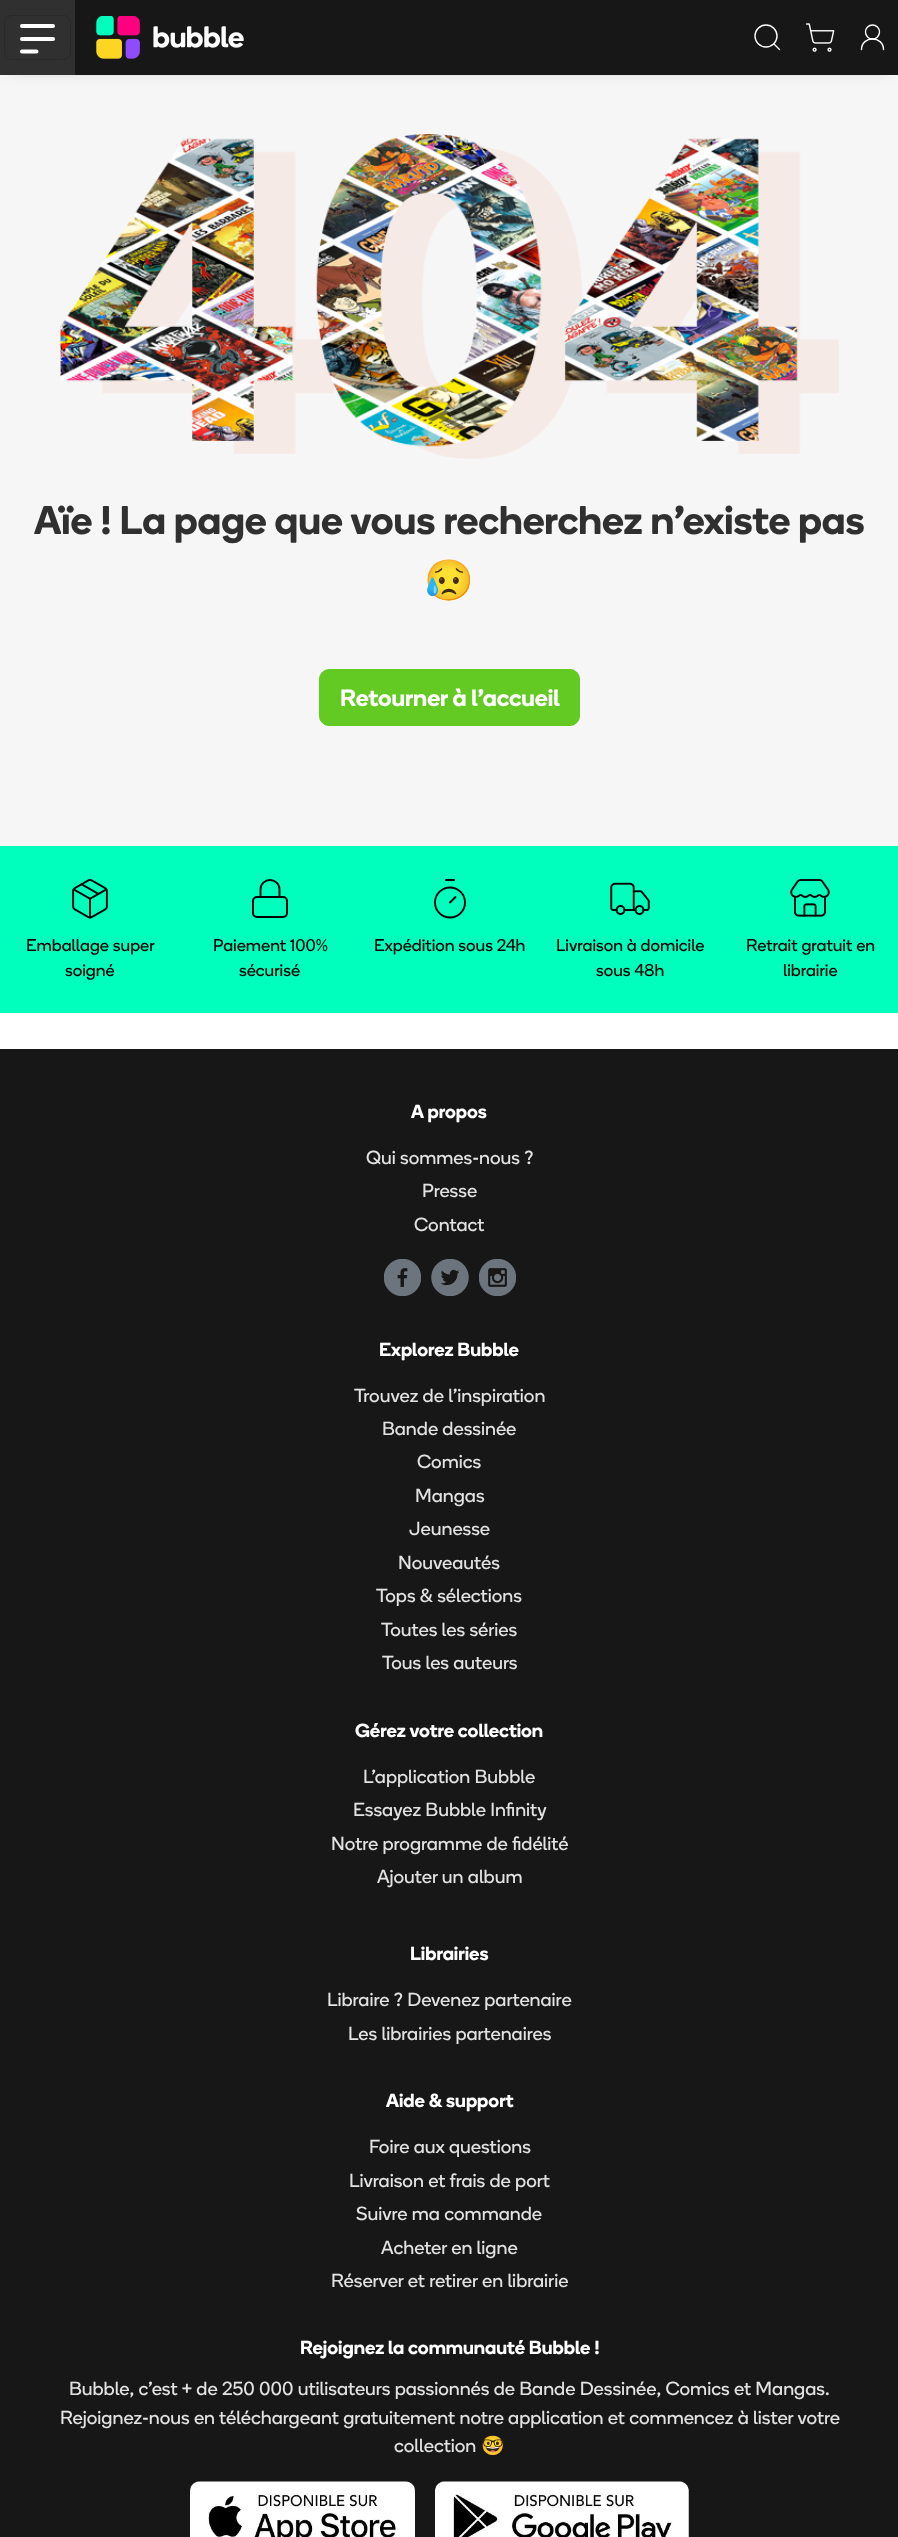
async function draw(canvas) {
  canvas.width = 898;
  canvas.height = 2537;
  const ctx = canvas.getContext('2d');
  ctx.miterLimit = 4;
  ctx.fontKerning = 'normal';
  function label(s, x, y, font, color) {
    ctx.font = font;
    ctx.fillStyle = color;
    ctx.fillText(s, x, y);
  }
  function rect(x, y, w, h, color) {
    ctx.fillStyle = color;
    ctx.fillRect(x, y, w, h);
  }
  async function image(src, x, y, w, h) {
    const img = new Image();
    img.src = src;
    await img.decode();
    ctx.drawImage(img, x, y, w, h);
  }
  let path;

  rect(0, 0, 898, 2537, '#fff');
  rect(0, 75, 898, 771, '#f6f6f6');
  ctx.fillStyle = '#00000033';
  ctx.filter = 'blur(8px)';
  ctx.beginPath();
  ctx.rect(11, 18, 877, 52);
  ctx.fill();
  ctx.filter = 'none';
  rect(75, 0, 823, 75, '#171717');
  rect(0, 0, 75, 75, '#303030');
  ctx.beginPath();
  ctx.roundRect(4.5, 15.5, 66, 44, 7.5);
  ctx.strokeStyle = '#292929';
  ctx.stroke();
  path = new Path2D('M22 26H53M22 39H53M22 51.5H36.5');
  ctx.strokeStyle = '#fff';
  ctx.lineWidth = 4;
  ctx.lineCap = 'round';
  ctx.stroke(path);
  await image('assets/img1.png', 96, 16, 148, 43);
  path = new Path2D('M779.5 49.5L774 44');
  ctx.lineWidth = 1.4;
  ctx.lineJoin = 'round';
  ctx.stroke(path);
  ctx.beginPath();
  ctx.arc(766, 36, 11, 0, 2 * Math.PI);
  ctx.stroke();
  await image('assets/img2.png', 805, 23, 30, 29);
  ctx.beginPath();
  ctx.arc(872.5, 32, 7, 0, 2 * Math.PI);
  ctx.stroke();
  path = new Path2D('M883.5 49.5C883.5 35.5 861.5 35.5 861.5 49.5');
  ctx.stroke(path);
  await image('assets/img3.png', 60, 134, 779, 325);
  label('Aïe ! La page que vous recherchez n\'existe pas', 34, 534, '600 40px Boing', '#303030');
  label('😥', 424, 594, 'bold 40px Noto Color Emoji', '#303030');
  ctx.fillStyle = '#62ca22';
  ctx.beginPath();
  ctx.roundRect(319.5, 669.5, 260, 56, 9.5);
  ctx.fill();
  ctx.strokeStyle = '#62ca22';
  ctx.lineWidth = 1;
  ctx.lineJoin = 'miter';
  ctx.stroke();
  label('Retourner à l\'accueil', 340, 706, '600 23.75px Boing', '#fff');
  rect(0, 846, 898, 167, '#00ffbc');
  await image('assets/img4.png', 72, 879, 36, 40);
  label('Emballage super', 26, 951, '17px Boing', '#000');
  label('soigné', 65, 976, '17px Boing', '#000');
  ctx.beginPath();
  ctx.roundRect(253, 897, 34, 20, 4);
  ctx.strokeStyle = '#000';
  ctx.lineWidth = 2;
  ctx.stroke();
  path = new Path2D('M260.5 897V889.5C260.5 884 265 880 270 880C275 880 279.5 884 279.5 889.5V897');
  ctx.lineWidth = 1.9;
  ctx.lineJoin = 'round';
  ctx.stroke(path);
  label('Paiement 100%', 213, 951, '17px Boing', '#000');
  label('sécurisé', 239, 976, '17px Boing', '#000');
  path = new Path2D('M446 880H454M450 902.5L455.5 897');
  ctx.stroke(path);
  ctx.beginPath();
  ctx.arc(450, 902.5, 15, 0, 2 * Math.PI);
  ctx.stroke();
  label('Expédition sous 24h', 374, 951, '17px Boing', '#000');
  await image('assets/img5.png', 610, 882, 40, 33);
  label('Livraison à domicile', 556, 951, '17px Boing', '#000');
  label('sous 48h', 596, 976, '17px Boing', '#000');
  await image('assets/img6.png', 790, 879, 40, 38);
  label('Retrait gratuit en', 746, 951, '17px Boing', '#000');
  label('librairie', 783, 976, '17px Boing', '#000');
  rect(0, 1049, 898, 1488, '#171717');
  label('A propos', 411, 1118, '600 19px Boing', '#fff');
  label('Qui sommes-nous ?', 366, 1164, '19px Boing', '#e2e2e2');
  label('Presse', 422, 1197, '19px Boing', '#e2e2e2');
  label('Contact', 414, 1231, '19px Boing', '#e2e2e2');
  await image('assets/img7.png', 384, 1259, 37, 37);
  await image('assets/img8.png', 431, 1259, 38, 37);
  await image('assets/img9.png', 479, 1259, 37, 37);
  label('Explorez Bubble', 379, 1356, '600 19px Boing', '#fff');
  label('Trouvez de l\'inspiration', 354, 1402, '19px Boing', '#e2e2e2');
  label('Bande dessinée', 382, 1435, '19px Boing', '#e2e2e2');
  label('Comics', 417, 1468, '19px Boing', '#e2e2e2');
  label('Mangas', 415, 1502, '19px Boing', '#e2e2e2');
  label('Jeunesse', 409, 1535, '19px Boing', '#e2e2e2');
  label('Nouveautés', 398, 1569, '19px Boing', '#e2e2e2');
  label('Tops & sélections', 376, 1602, '19px Boing', '#e2e2e2');
  label('Toutes les séries', 381, 1636, '19px Boing', '#e2e2e2');
  label('Tous les auteurs', 382, 1669, '19px Boing', '#e2e2e2');
  label('Gérez votre collection', 355, 1737, '600 19px Boing', '#fff');
  label('L\'application Bubble', 363, 1783, '19px Boing', '#e2e2e2');
  label('Essayez Bubble Infinity', 353, 1816, '19px Boing', '#e2e2e2');
  label('Notre programme de fidélité', 331, 1850, '19px Boing', '#e2e2e2');
  label('Ajouter un album', 377, 1883, '19px Boing', '#e2e2e2');
  label('Librairies', 410, 1960, '600 19px Boing', '#fff');
  label('Libraire ? Devenez partenaire', 327, 2006, '19px Boing', '#e2e2e2');
  label('Les librairies partenaires', 348, 2040, '19px Boing', '#e2e2e2');
  label('Aide & support', 386, 2107, '600 19px Boing', '#fff');
  label('Foire aux questions', 369, 2153, '19px Boing', '#e2e2e2');
  label('Livraison et frais de port', 349, 2187, '19px Boing', '#e2e2e2');
  label('Suivre ma commande', 356, 2220, '19px Boing', '#e2e2e2');
  label('Acheter en ligne', 381, 2254, '19px Boing', '#e2e2e2');
  label('Réserver et retirer en librairie', 331, 2287, '19px Boing', '#e2e2e2');
  label('Rejoignez la communauté Bubble !', 300, 2354, '600 19px Boing', '#fff');
  label('Bubble, c\'est + de 250 000 utilisateurs passionnés de Bande Dessinée, Comics et Mangas.', 69, 2395, '19px Boing', '#e2e2e2');
  label('Rejoignez-nous en téléchargeant gratuitement notre application et commencez à lister votre', 60, 2424, '19px Boing', '#e2e2e2');
  label('collection', 394, 2452, '19px Boing', '#e2e2e2');
  label('🤓', 481, 2452, '19px Noto Color Emoji', '#e2e2e2');
  await image('assets/img10.png', 190, 2481, 225, 56);
  await image('assets/img11.png', 435, 2481, 254, 56);
}

draw(document.querySelector('canvas'));
